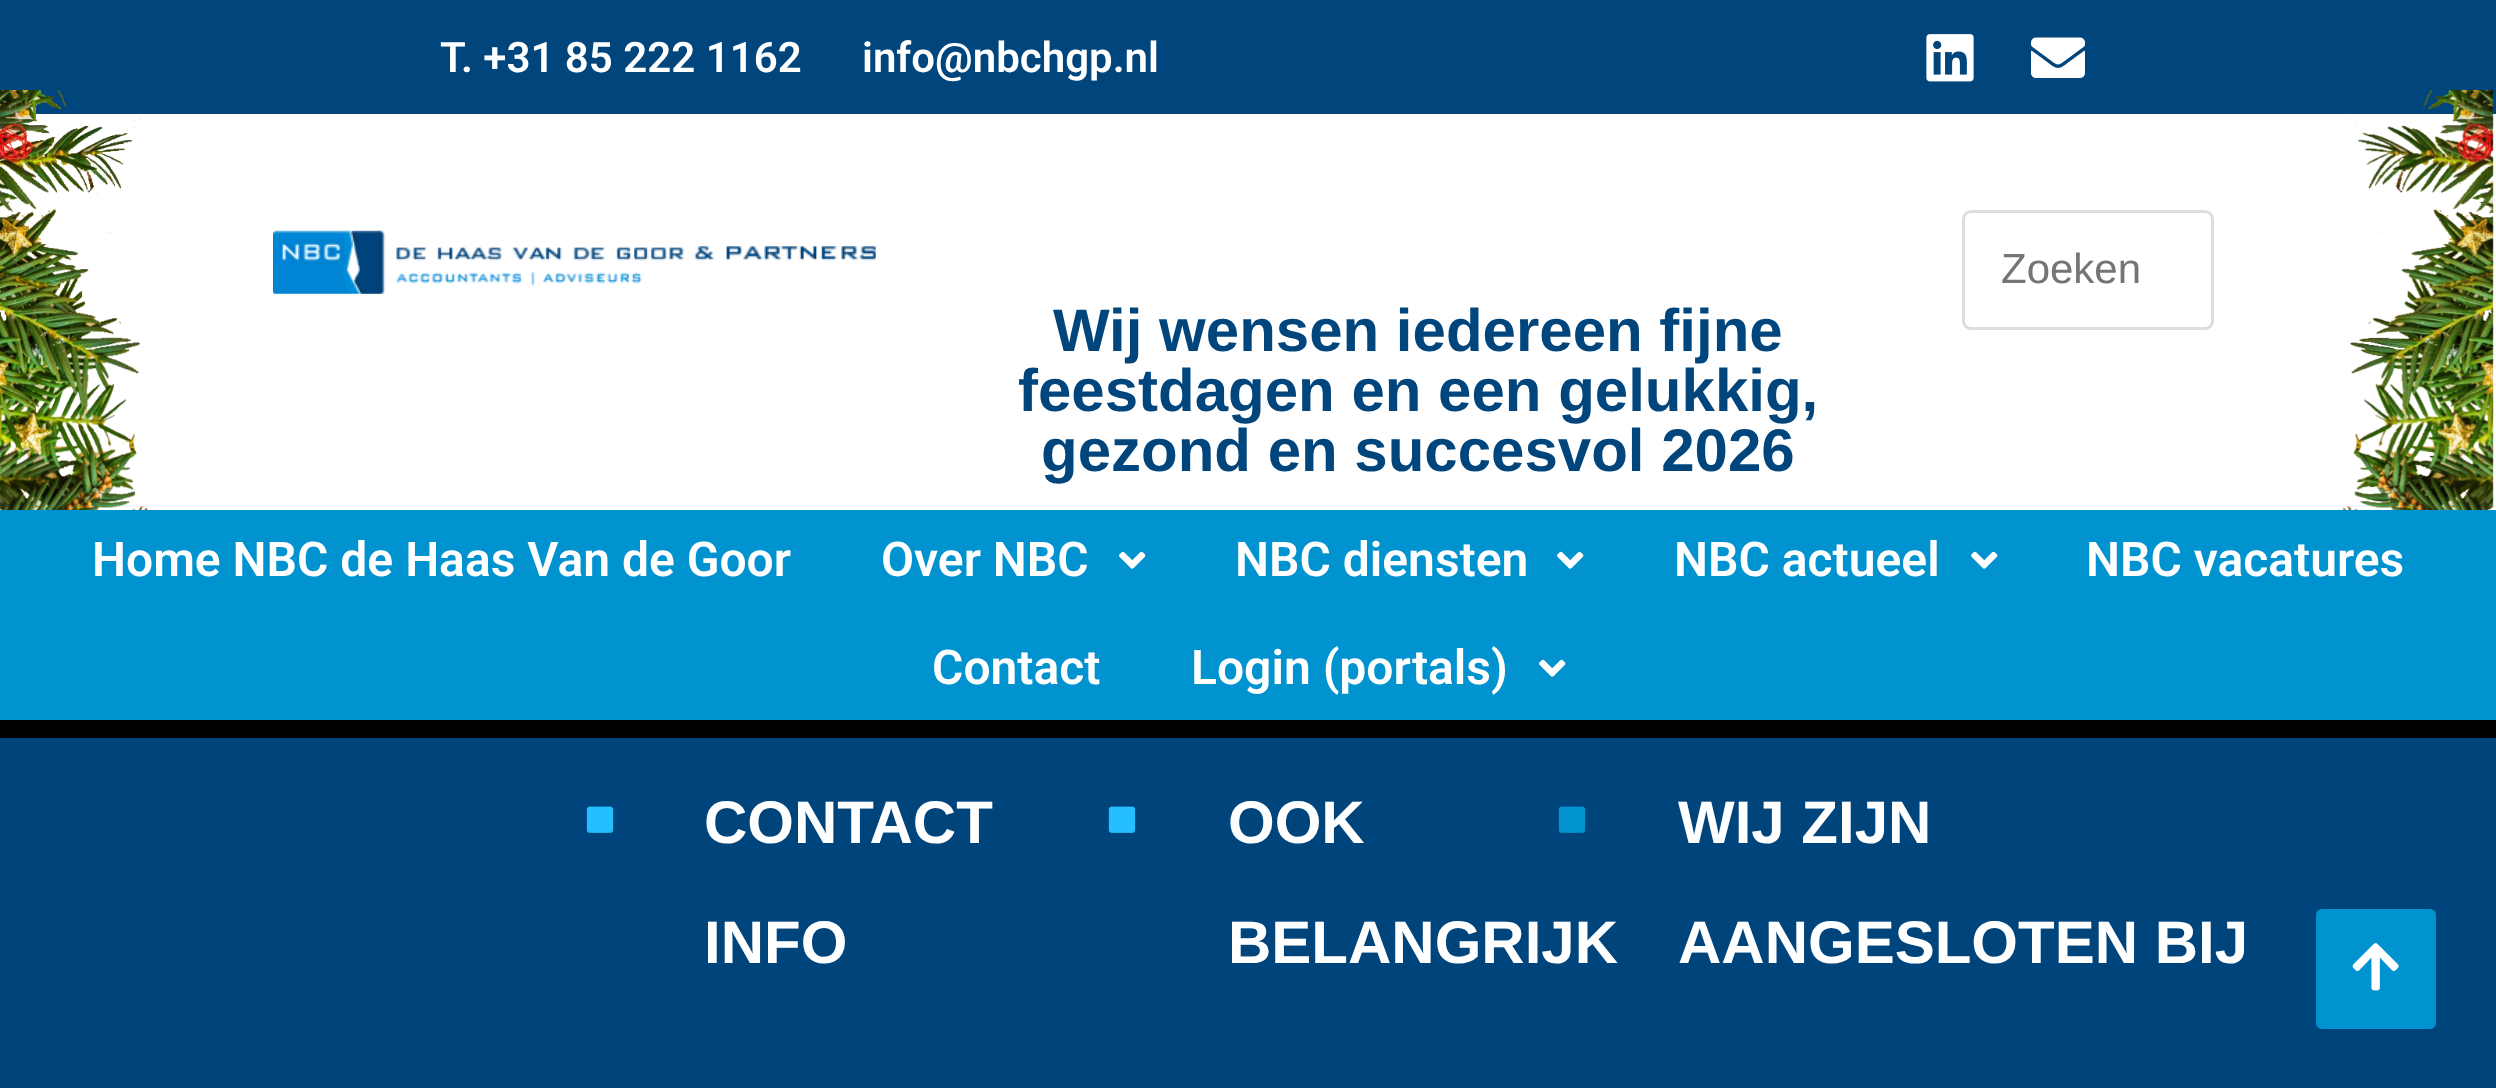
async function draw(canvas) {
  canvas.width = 2496;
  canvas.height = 1088;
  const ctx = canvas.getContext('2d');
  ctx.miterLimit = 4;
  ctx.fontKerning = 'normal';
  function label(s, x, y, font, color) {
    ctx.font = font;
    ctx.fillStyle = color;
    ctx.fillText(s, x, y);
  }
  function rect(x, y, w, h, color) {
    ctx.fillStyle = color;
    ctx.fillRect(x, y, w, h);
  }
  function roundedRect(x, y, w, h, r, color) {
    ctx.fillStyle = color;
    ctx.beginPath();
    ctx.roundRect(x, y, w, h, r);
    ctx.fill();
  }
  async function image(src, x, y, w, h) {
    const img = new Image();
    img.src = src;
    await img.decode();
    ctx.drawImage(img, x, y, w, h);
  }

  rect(0, 0, 2496, 1088, '#000');
  rect(0, 114, 2496, 396, '#fff');
  rect(0, 0, 2496, 114, '#00457c');
  label('T. +31 85 222 1162', 440, 72, '600 42px Roboto', '#fff');
  label('info@nbchgp.nl', 862, 72, '600 42px Roboto', '#fff');
  await image('assets/img1.png', 1926, 34, 48, 48);
  await image('assets/img2.png', 2031, 37, 54, 41);
  await image('assets/img3.png', 0, 90, 148, 420);
  await image('assets/img4.png', 273, 230, 603, 64);
  ctx.beginPath();
  ctx.roundRect(1963.5, 211.5, 249, 117, 7.5);
  ctx.strokeStyle = '#ddd';
  ctx.lineWidth = 3;
  ctx.stroke();
  label('Zoeken', 2001, 283, '42px Liberation Sans', '#757575');
  await image('assets/img5.png', 2342, 90, 152, 420);
  label('Wij wensen iedereen fijne', 1053, 351, 'bold 60px Liberation Sans', '#00457c');
  label('feestdagen en een gelukkig,', 1018, 411, 'bold 60px Liberation Sans', '#00457c');
  label('gezond en succesvol 2026', 1041, 471, 'bold 60px Liberation Sans', '#00457c');
  rect(0, 510, 2496, 210, '#0093d0');
  label('Home NBC de Haas Van de Goor', 92, 576, '600 48px Roboto', '#fff');
  label('Over NBC', 881, 576, '600 48px Roboto', '#fff');
  await image('assets/img6.png', 1119, 551, 27, 18);
  label('NBC diensten', 1235, 576, '600 48px Roboto', '#fff');
  await image('assets/img6.png', 1557, 551, 27, 18);
  label('NBC actueel', 1674, 576, '600 48px Roboto', '#fff');
  await image('assets/img6.png', 1971, 551, 27, 18);
  label('NBC vacatures', 2086, 576, '600 48px Roboto', '#fff');
  label('Contact', 932, 684, '600 48px Roboto', '#fff');
  label('Login (portals)', 1191, 684, '600 48px Roboto', '#fff');
  await image('assets/img6.png', 1539, 659, 27, 18);
  rect(0, 738, 2496, 350, '#00447c');
  await image('assets/img7.png', 586, 806, 28, 27);
  label('CONTACT', 704, 843, 'bold 60px Liberation Sans', '#fff');
  label('INFO', 704, 963, 'bold 60px Liberation Sans', '#fff');
  await image('assets/img7.png', 1108, 806, 28, 27);
  label('OOK', 1228, 843, 'bold 60px Liberation Sans', '#fff');
  label('BELANGRIJK', 1228, 963, 'bold 60px Liberation Sans', '#fff');
  await image('assets/img8.png', 1558, 806, 28, 27);
  label('WIJ ZIJN', 1678, 843, 'bold 60px Liberation Sans', '#fff');
  label('AANGESLOTEN BIJ', 1678, 963, 'bold 60px Liberation Sans', '#fff');
  roundedRect(2316, 909, 120, 120, 6, '#0093d0');
  await image('assets/img9.png', 2352, 943, 47, 48);
}

draw(document.querySelector('canvas'));
